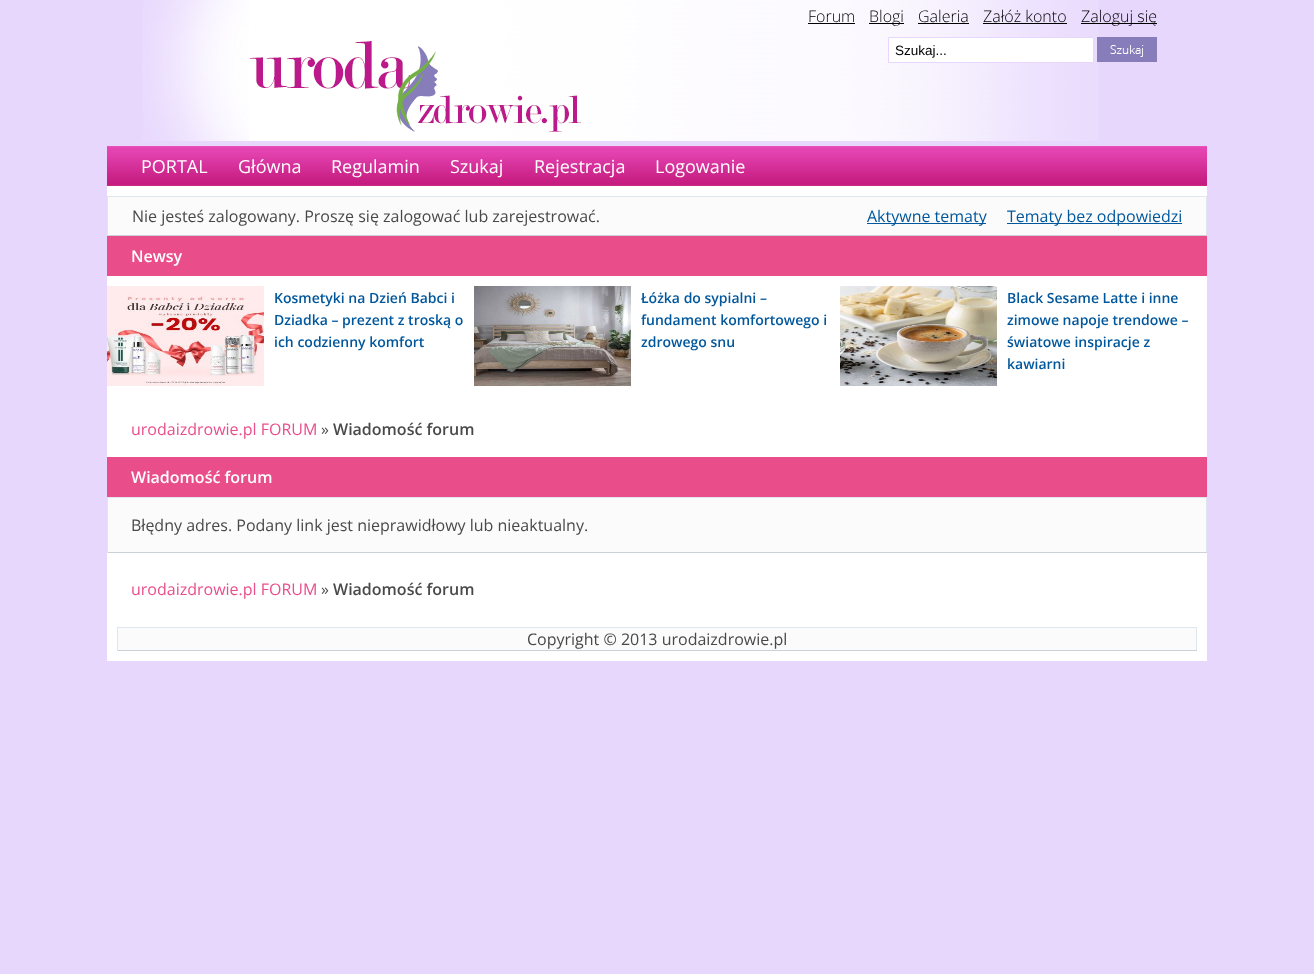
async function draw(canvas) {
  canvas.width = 1314;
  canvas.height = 974;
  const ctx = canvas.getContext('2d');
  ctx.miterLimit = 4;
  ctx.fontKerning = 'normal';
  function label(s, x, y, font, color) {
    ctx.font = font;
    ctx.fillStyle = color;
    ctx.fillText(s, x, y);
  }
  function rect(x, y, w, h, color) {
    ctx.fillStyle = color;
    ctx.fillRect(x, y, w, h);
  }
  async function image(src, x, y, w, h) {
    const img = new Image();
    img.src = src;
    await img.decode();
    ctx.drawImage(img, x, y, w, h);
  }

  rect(0, 0, 1314, 974, '#e7d7fd');
  await image('assets/img1.png', 142, 0, 107, 141);
  await image('assets/img2.png', 249, 0, 850, 141);
  label('Forum', 808, 22, '300 16px Open Sans', '#000');
  rect(808, 23, 47, 1, '#000');
  rect(869, 23, 35, 1, '#000');
  label('Blogi', 869, 22, '300 16px Open Sans', '#000');
  label('Galeria', 918, 22, '300 16px Open Sans', '#000');
  rect(918, 23, 51, 1, '#000');
  label('Załóż konto', 983, 22, '300 16px Open Sans', '#000');
  rect(983, 23, 84, 1, '#000');
  rect(1081, 23, 76, 1, '#000');
  label('Zaloguj się', 1081, 22, '300 16px Open Sans', '#000');
  await image('assets/img3.png', 250, 41, 332, 91);
  ctx.fillStyle = '#fff';
  ctx.beginPath();
  ctx.rect(888.5, 37.5, 205, 25);
  ctx.fill();
  ctx.strokeStyle = '#e7d7fe';
  ctx.stroke();
  label('Szukaj...', 895, 55, '13.5px Liberation Sans', '#000');
  await image('assets/img4.png', 1097, 37, 60, 25);
  rect(107, 186, 1100, 475, '#fff');
  await image('assets/img5.png', 107, 146, 1100, 40);
  label('PORTAL', 141, 173, '18px Open Sans', '#fff');
  label('Główna', 238, 173, '18px Open Sans', '#fff');
  label('Regulamin', 331, 173, '18px Open Sans', '#fff');
  label('Szukaj', 450, 173, '18px Open Sans', '#fff');
  label('Rejestracja', 534, 173, '18px Open Sans', '#fff');
  label('Logowanie', 655, 173, '18px Open Sans', '#fff');
  rect(108, 197, 1098, 38, '#fbfbfb');
  rect(107, 196, 1100, 1, '#dfe6ed');
  rect(1206, 196, 1, 40, '#dfe6ed');
  rect(107, 235, 1100, 1, '#cbd1d8');
  rect(107, 196, 1, 40, '#dfe6ed');
  label('Nie jesteś zalogowany. Proszę się zalogować lub zarejestrować.', 132, 222, '16px Open Sans', '#494949');
  rect(867, 223, 119, 1, '#00579c');
  label('Aktywne tematy', 867, 222, '16px Open Sans', '#00579c');
  rect(1007, 223, 175, 1, '#00579c');
  label('Tematy bez odpowiedzi', 1007, 222, '16px Open Sans', '#00579c');
  rect(107, 236, 1100, 40, '#e94e8a');
  label('Newsy', 131, 262, '600 16px Open Sans', '#fff');
  await image('assets/img6.png', 107, 286, 157, 100);
  label('Kosmetyki na Dzień Babci i', 274, 303, '600 14px Open Sans', '#00579c');
  label('Dziadka – prezent z troską o', 274, 325, '600 14px Open Sans', '#00579c');
  label('ich codzienny komfort', 274, 347, '600 14px Open Sans', '#00579c');
  await image('assets/img7.png', 474, 286, 157, 100);
  label('Łóżka do sypialni –', 641, 303, '600 14px Open Sans', '#00579c');
  label('fundament komfortowego i', 641, 325, '600 14px Open Sans', '#00579c');
  label('zdrowego snu', 641, 347, '600 14px Open Sans', '#00579c');
  await image('assets/img8.png', 840, 286, 157, 100);
  label('Black Sesame Latte i inne', 1007, 303, '600 14px Open Sans', '#00579c');
  label('zimowe napoje trendowe –', 1007, 325, '600 14px Open Sans', '#00579c');
  label('światowe inspiracje z', 1007, 347, '600 14px Open Sans', '#00579c');
  label('kawiarni', 1007, 369, '600 14px Open Sans', '#00579c');
  label('urodaizdrowie.pl FORUM', 131, 435, '16px Open Sans', '#e94e8a');
  label('»', 321, 435, '16px Open Sans', '#494949');
  label('Wiadomość forum', 333, 435, '600 16px Open Sans', '#494949');
  rect(107, 457, 1100, 40, '#e94e8a');
  label('Wiadomość forum', 131, 483, '600 16px Open Sans', '#fff');
  rect(108, 498, 1098, 54, '#fbfbfb');
  rect(107, 497, 1100, 1, '#dfe6ed');
  rect(1206, 497, 1, 56, '#dfe6ed');
  rect(107, 552, 1100, 1, '#cbd1d8');
  rect(107, 497, 1, 56, '#dfe6ed');
  label('Błędny adres. Podany link jest nieprawidłowy lub nieaktualny.', 131, 531, '16px Open Sans', '#494949');
  label('urodaizdrowie.pl FORUM', 131, 595, '16px Open Sans', '#e94e8a');
  label('»', 321, 595, '16px Open Sans', '#494949');
  label('Wiadomość forum', 333, 595, '600 16px Open Sans', '#494949');
  rect(118, 628, 1078, 22, '#fbfbfb');
  rect(117, 627, 1080, 1, '#dfe6ed');
  rect(1196, 627, 1, 24, '#dfe6ed');
  rect(117, 650, 1080, 1, '#cbd1d8');
  rect(117, 627, 1, 24, '#dfe6ed');
  label('Copyright © 2013 urodaizdrowie.pl', 527, 645, '16px Open Sans', '#494949');
}

draw(document.querySelector('canvas'));
